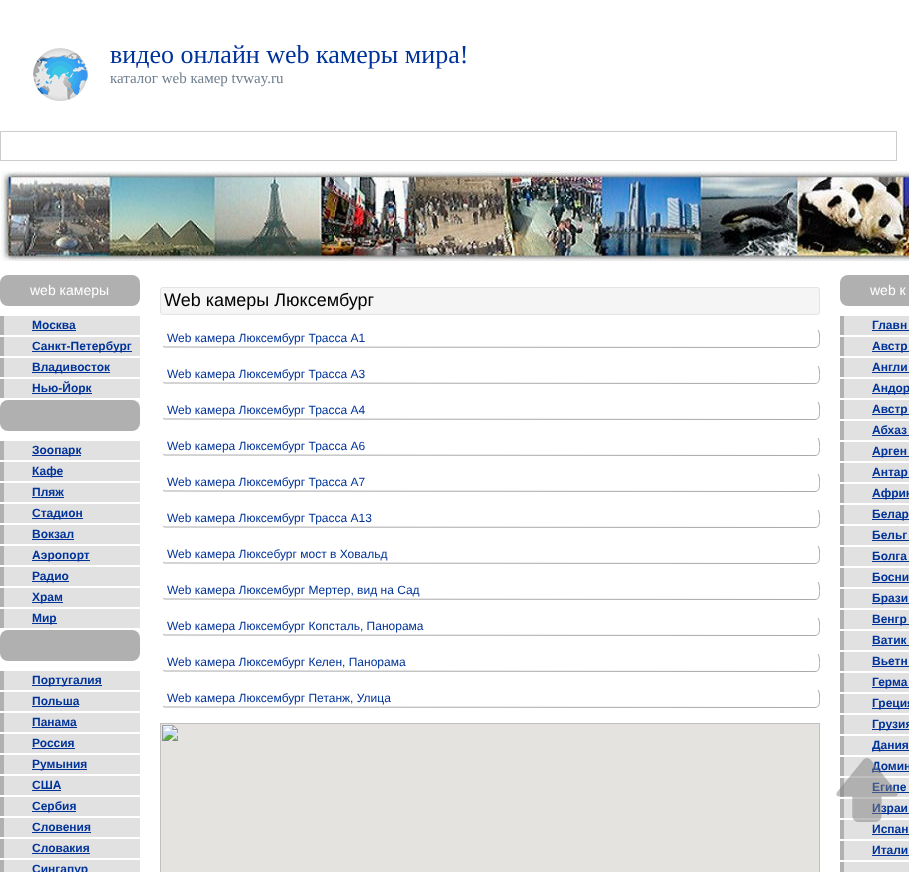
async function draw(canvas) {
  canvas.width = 909;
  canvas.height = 872;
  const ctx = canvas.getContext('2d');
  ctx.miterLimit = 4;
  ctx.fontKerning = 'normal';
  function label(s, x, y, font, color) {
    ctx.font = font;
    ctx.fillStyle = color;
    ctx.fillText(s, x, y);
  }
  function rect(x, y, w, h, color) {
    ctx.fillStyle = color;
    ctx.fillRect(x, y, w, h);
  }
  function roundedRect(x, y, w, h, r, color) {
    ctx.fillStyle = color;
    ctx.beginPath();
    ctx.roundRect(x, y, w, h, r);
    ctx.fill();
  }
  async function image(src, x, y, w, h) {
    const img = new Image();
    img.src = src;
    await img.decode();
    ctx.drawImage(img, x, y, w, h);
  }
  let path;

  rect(0, 0, 909, 872, '#fff');
  await image('assets/img1.png', 33, 48, 55, 53);
  label('видео онлайн web камеры мира!', 110, 63, '26px Liberation Serif', '#039');
  label('каталог web камер tvway.ru', 110, 83, '15px Liberation Serif', '#708090');
  ctx.strokeStyle = '#ccc';
  ctx.strokeRect(0.5, 131.5, 896, 29);
  await image('assets/img2.png', 0, 171, 909, 90);
  roundedRect(0, 275, 140, 31, 8, '#b0b0b0');
  label('web камеры', 30, 295, '14px Liberation Sans', '#fff');
  rect(4, 316, 136, 19, '#e1e1e1');
  rect(0, 316, 4, 19, '#b0b0b0');
  label('Москва', 32, 329, 'bold 12px Liberation Sans', '#039');
  rect(32, 330, 44, 1, '#039');
  rect(4, 337, 136, 19, '#e1e1e1');
  rect(0, 337, 4, 19, '#b0b0b0');
  rect(32, 351, 100, 1, '#039');
  label('Санкт-Петербург', 32, 350, 'bold 12px Liberation Sans', '#039');
  rect(4, 358, 136, 19, '#e1e1e1');
  rect(0, 358, 4, 19, '#b0b0b0');
  rect(32, 372, 78, 1, '#039');
  label('Владивосток', 32, 371, 'bold 12px Liberation Sans', '#039');
  rect(4, 379, 136, 19, '#e1e1e1');
  rect(0, 379, 4, 19, '#b0b0b0');
  rect(32, 393, 60, 1, '#039');
  label('Нью-Йорк', 32, 392, 'bold 12px Liberation Sans', '#039');
  roundedRect(0, 400, 140, 31, 8, '#b0b0b0');
  rect(4, 441, 136, 19, '#e1e1e1');
  rect(0, 441, 4, 19, '#b0b0b0');
  rect(32, 455, 49, 1, '#039');
  label('Зоопарк', 32, 454, 'bold 12px Liberation Sans', '#039');
  rect(4, 462, 136, 19, '#e1e1e1');
  rect(0, 462, 4, 19, '#b0b0b0');
  rect(32, 476, 31, 1, '#039');
  label('Кафе', 32, 475, 'bold 12px Liberation Sans', '#039');
  rect(4, 483, 136, 19, '#e1e1e1');
  rect(0, 483, 4, 19, '#b0b0b0');
  label('Пляж', 32, 496, 'bold 12px Liberation Sans', '#039');
  rect(32, 497, 32, 1, '#039');
  rect(4, 504, 136, 19, '#e1e1e1');
  rect(0, 504, 4, 19, '#b0b0b0');
  rect(32, 518, 51, 1, '#039');
  label('Стадион', 32, 517, 'bold 12px Liberation Sans', '#039');
  rect(4, 525, 136, 19, '#e1e1e1');
  rect(0, 525, 4, 19, '#b0b0b0');
  label('Вокзал', 32, 538, 'bold 12px Liberation Sans', '#039');
  rect(32, 539, 42, 1, '#039');
  rect(4, 546, 136, 19, '#e1e1e1');
  rect(0, 546, 4, 19, '#b0b0b0');
  rect(32, 560, 58, 1, '#039');
  label('Аэропорт', 32, 559, 'bold 12px Liberation Sans', '#039');
  rect(4, 567, 136, 19, '#e1e1e1');
  rect(0, 567, 4, 19, '#b0b0b0');
  rect(32, 581, 37, 1, '#039');
  label('Радио', 32, 580, 'bold 12px Liberation Sans', '#039');
  rect(4, 588, 136, 19, '#e1e1e1');
  rect(0, 588, 4, 19, '#b0b0b0');
  rect(32, 602, 31, 1, '#039');
  label('Храм', 32, 601, 'bold 12px Liberation Sans', '#039');
  rect(4, 609, 136, 19, '#e1e1e1');
  rect(0, 609, 4, 19, '#b0b0b0');
  rect(32, 623, 25, 1, '#039');
  label('Мир', 32, 622, 'bold 12px Liberation Sans', '#039');
  roundedRect(0, 630, 140, 31, 8, '#b0b0b0');
  rect(4, 671, 136, 19, '#e1e1e1');
  rect(0, 671, 4, 19, '#b0b0b0');
  rect(32, 685, 70, 1, '#039');
  label('Португалия', 32, 684, 'bold 12px Liberation Sans', '#039');
  rect(4, 692, 136, 19, '#e1e1e1');
  rect(0, 692, 4, 19, '#b0b0b0');
  label('Польша', 32, 705, 'bold 12px Liberation Sans', '#039');
  rect(32, 706, 47, 1, '#039');
  rect(4, 713, 136, 19, '#e1e1e1');
  rect(0, 713, 4, 19, '#b0b0b0');
  label('Панама', 32, 726, 'bold 12px Liberation Sans', '#039');
  rect(32, 727, 45, 1, '#039');
  rect(4, 734, 136, 19, '#e1e1e1');
  rect(0, 734, 4, 19, '#b0b0b0');
  label('Россия', 32, 747, 'bold 12px Liberation Sans', '#039');
  rect(32, 748, 43, 1, '#039');
  rect(4, 755, 136, 19, '#e1e1e1');
  rect(0, 755, 4, 19, '#b0b0b0');
  rect(32, 769, 55, 1, '#039');
  label('Румыния', 32, 768, 'bold 12px Liberation Sans', '#039');
  rect(4, 776, 136, 19, '#e1e1e1');
  rect(0, 776, 4, 19, '#b0b0b0');
  label('США', 32, 789, 'bold 12px Liberation Sans', '#039');
  rect(32, 790, 29, 1, '#039');
  rect(4, 797, 136, 19, '#e1e1e1');
  rect(0, 797, 4, 19, '#b0b0b0');
  rect(32, 811, 44, 1, '#039');
  label('Сербия', 32, 810, 'bold 12px Liberation Sans', '#039');
  rect(4, 818, 136, 19, '#e1e1e1');
  rect(0, 818, 4, 19, '#b0b0b0');
  label('Словения', 32, 831, 'bold 12px Liberation Sans', '#039');
  rect(32, 832, 59, 1, '#039');
  rect(4, 839, 136, 19, '#e1e1e1');
  rect(0, 839, 4, 19, '#b0b0b0');
  label('Словакия', 32, 852, 'bold 12px Liberation Sans', '#039');
  rect(32, 853, 58, 1, '#039');
  rect(4, 860, 136, 12, '#e1e1e1');
  rect(0, 860, 4, 12, '#b0b0b0');
  label('Сингапур', 32, 873, 'bold 12px Liberation Sans', '#039');
  ctx.fillStyle = '#f5f5f5';
  ctx.beginPath();
  ctx.roundRect(160.5, 287.5, 659, 27, 2.5);
  ctx.fill();
  ctx.strokeStyle = '#e3e3e3';
  ctx.stroke();
  label('Web камеры Люксембург', 164, 306, '18px Liberation Sans', '#000');
  ctx.save();
  ctx.beginPath();
  ctx.rect(160, 275, 660, 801);
  ctx.clip();
  path = new Path2D('M818 330C820 332 820 342.5 819 344.5C818.5 346.5 817 347.5 815 347.5L164.5 347L163 346');
  ctx.strokeStyle = '#aaa';
  ctx.stroke(path);
  ctx.restore();
  path = new Path2D('M163 346C161 344 161 333.5 162 331.5C162.5 329.5 164 328.5 166 328.5L816.5 329L818 330');
  ctx.strokeStyle = '#fff';
  ctx.stroke(path);
  label('Web камера Люксембург Трасса А1', 167, 342, '12px Liberation Sans', '#039');
  ctx.save();
  ctx.beginPath();
  ctx.rect(160, 275, 660, 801);
  ctx.clip();
  path = new Path2D('M818 366C820 368 820 378.5 819 380.5C818.5 382.5 817 383.5 815 383.5L164.5 383L163 382');
  ctx.strokeStyle = '#aaa';
  ctx.stroke(path);
  ctx.restore();
  path = new Path2D('M163 382C161 380 161 369.5 162 367.5C162.5 365.5 164 364.5 166 364.5L816.5 365L818 366');
  ctx.stroke(path);
  label('Web камера Люксембург Трасса А3', 167, 378, '12px Liberation Sans', '#039');
  ctx.save();
  ctx.beginPath();
  ctx.rect(160, 275, 660, 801);
  ctx.clip();
  path = new Path2D('M818 402C820 404 820 414.5 819 416.5C818.5 418.5 817 419.5 815 419.5L164.5 419L163 418');
  ctx.strokeStyle = '#aaa';
  ctx.stroke(path);
  ctx.restore();
  path = new Path2D('M163 418C161 416 161 405.5 162 403.5C162.5 401.5 164 400.5 166 400.5L816.5 401L818 402');
  ctx.stroke(path);
  label('Web камера Люксембург Трасса А4', 167, 414, '12px Liberation Sans', '#039');
  ctx.save();
  ctx.beginPath();
  ctx.rect(160, 275, 660, 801);
  ctx.clip();
  path = new Path2D('M818 438C820 440 820 450.5 819 452.5C818.5 454.5 817 455.5 815 455.5L164.5 455L163 454');
  ctx.strokeStyle = '#aaa';
  ctx.stroke(path);
  ctx.restore();
  path = new Path2D('M163 454C161 452 161 441.5 162 439.5C162.5 437.5 164 436.5 166 436.5L816.5 437L818 438');
  ctx.stroke(path);
  label('Web камера Люксембург Трасса А6', 167, 450, '12px Liberation Sans', '#039');
  ctx.save();
  ctx.beginPath();
  ctx.rect(160, 275, 660, 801);
  ctx.clip();
  path = new Path2D('M818 474C820 476 820 486.5 819 488.5C818.5 490.5 817 491.5 815 491.5L164.5 491L163 490');
  ctx.strokeStyle = '#aaa';
  ctx.stroke(path);
  ctx.restore();
  path = new Path2D('M163 490C161 488 161 477.5 162 475.5C162.5 473.5 164 472.5 166 472.5L816.5 473L818 474');
  ctx.stroke(path);
  label('Web камера Люксембург Трасса А7', 167, 486, '12px Liberation Sans', '#039');
  ctx.save();
  ctx.beginPath();
  ctx.rect(160, 275, 660, 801);
  ctx.clip();
  path = new Path2D('M818 510C820 512 820 522.5 819 524.5C818.5 526.5 817 527.5 815 527.5L164.5 527L163 526');
  ctx.strokeStyle = '#aaa';
  ctx.stroke(path);
  ctx.restore();
  path = new Path2D('M163 526C161 524 161 513.5 162 511.5C162.5 509.5 164 508.5 166 508.5L816.5 509L818 510');
  ctx.stroke(path);
  label('Web камера Люксембург Трасса А13', 167, 522, '12px Liberation Sans', '#039');
  ctx.save();
  ctx.beginPath();
  ctx.rect(160, 275, 660, 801);
  ctx.clip();
  path = new Path2D('M818 546C820 548 820 558.5 819 560.5C818.5 562.5 817 563.5 815 563.5L164.5 563L163 562');
  ctx.strokeStyle = '#aaa';
  ctx.stroke(path);
  ctx.restore();
  path = new Path2D('M163 562C161 560 161 549.5 162 547.5C162.5 545.5 164 544.5 166 544.5L816.5 545L818 546');
  ctx.stroke(path);
  label('Web камера Люксебург мост в Ховальд', 167, 558, '12px Liberation Sans', '#039');
  ctx.save();
  ctx.beginPath();
  ctx.rect(160, 275, 660, 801);
  ctx.clip();
  path = new Path2D('M818 582C820 584 820 594.5 819 596.5C818.5 598.5 817 599.5 815 599.5L164.5 599L163 598');
  ctx.strokeStyle = '#aaa';
  ctx.stroke(path);
  ctx.restore();
  path = new Path2D('M163 598C161 596 161 585.5 162 583.5C162.5 581.5 164 580.5 166 580.5L816.5 581L818 582');
  ctx.stroke(path);
  label('Web камера Люксембург Мертер, вид на Сад', 167, 594, '12px Liberation Sans', '#039');
  ctx.save();
  ctx.beginPath();
  ctx.rect(160, 275, 660, 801);
  ctx.clip();
  path = new Path2D('M818 618C820 620 820 630.5 819 632.5C818.5 634.5 817 635.5 815 635.5L164.5 635L163 634');
  ctx.strokeStyle = '#aaa';
  ctx.stroke(path);
  ctx.restore();
  path = new Path2D('M163 634C161 632 161 621.5 162 619.5C162.5 617.5 164 616.5 166 616.5L816.5 617L818 618');
  ctx.stroke(path);
  label('Web камера Люксембург Копсталь, Панорама', 167, 630, '12px Liberation Sans', '#039');
  ctx.save();
  ctx.beginPath();
  ctx.rect(160, 275, 660, 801);
  ctx.clip();
  path = new Path2D('M818 654C820 656 820 666.5 819 668.5C818.5 670.5 817 671.5 815 671.5L164.5 671L163 670');
  ctx.strokeStyle = '#aaa';
  ctx.stroke(path);
  ctx.restore();
  path = new Path2D('M163 670C161 668 161 657.5 162 655.5C162.5 653.5 164 652.5 166 652.5L816.5 653L818 654');
  ctx.stroke(path);
  label('Web камера Люксембург Келен, Панорама', 167, 666, '12px Liberation Sans', '#039');
  ctx.save();
  ctx.beginPath();
  ctx.rect(160, 275, 660, 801);
  ctx.clip();
  path = new Path2D('M818 690C820 692 820 702.5 819 704.5C818.5 706.5 817 707.5 815 707.5L164.5 707L163 706');
  ctx.strokeStyle = '#aaa';
  ctx.stroke(path);
  ctx.restore();
  path = new Path2D('M163 706C161 704 161 693.5 162 691.5C162.5 689.5 164 688.5 166 688.5L816.5 689L818 690');
  ctx.stroke(path);
  label('Web камера Люксембург Петанж, Улица', 167, 702, '12px Liberation Sans', '#039');
  await image('assets/img3.png', 160, 723, 660, 149);
  roundedRect(840, 275, 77, 31, 8, '#b0b0b0');
  label('web к', 870, 295, '14px Liberation Sans', '#fff');
  rect(844, 316, 65, 19, '#e1e1e1');
  rect(840, 316, 4, 19, '#b0b0b0');
  label('Главн', 872, 329, 'bold 12px Liberation Sans', '#039');
  rect(872, 330, 37, 1, '#039');
  rect(844, 337, 65, 19, '#e1e1e1');
  rect(840, 337, 4, 19, '#b0b0b0');
  rect(872, 351, 37, 1, '#039');
  label('Австр', 872, 350, 'bold 12px Liberation Sans', '#039');
  rect(844, 358, 65, 19, '#e1e1e1');
  rect(840, 358, 4, 19, '#b0b0b0');
  label('Англи', 872, 371, 'bold 12px Liberation Sans', '#039');
  rect(872, 372, 37, 1, '#039');
  rect(844, 379, 65, 19, '#e1e1e1');
  rect(840, 379, 4, 19, '#b0b0b0');
  rect(872, 393, 37, 1, '#039');
  label('Андор', 872, 392, 'bold 12px Liberation Sans', '#039');
  rect(844, 400, 65, 19, '#e1e1e1');
  rect(840, 400, 4, 19, '#b0b0b0');
  rect(872, 414, 37, 1, '#039');
  label('Австр', 872, 413, 'bold 12px Liberation Sans', '#039');
  rect(844, 421, 65, 19, '#e1e1e1');
  rect(840, 421, 4, 19, '#b0b0b0');
  label('Абхаз', 872, 434, 'bold 12px Liberation Sans', '#039');
  rect(872, 435, 37, 1, '#039');
  rect(844, 442, 65, 19, '#e1e1e1');
  rect(840, 442, 4, 19, '#b0b0b0');
  rect(872, 456, 37, 1, '#039');
  label('Арген', 872, 455, 'bold 12px Liberation Sans', '#039');
  rect(844, 463, 65, 19, '#e1e1e1');
  rect(840, 463, 4, 19, '#b0b0b0');
  rect(872, 477, 37, 1, '#039');
  label('Антар', 872, 476, 'bold 12px Liberation Sans', '#039');
  rect(844, 484, 65, 19, '#e1e1e1');
  rect(840, 484, 4, 19, '#b0b0b0');
  rect(872, 498, 37, 1, '#039');
  label('Африк', 872, 497, 'bold 12px Liberation Sans', '#039');
  rect(844, 505, 65, 19, '#e1e1e1');
  rect(840, 505, 4, 19, '#b0b0b0');
  rect(872, 519, 37, 1, '#039');
  label('Белар', 872, 518, 'bold 12px Liberation Sans', '#039');
  rect(844, 526, 65, 19, '#e1e1e1');
  rect(840, 526, 4, 19, '#b0b0b0');
  label('Бельг', 872, 539, 'bold 12px Liberation Sans', '#039');
  rect(872, 540, 37, 1, '#039');
  rect(844, 547, 65, 19, '#e1e1e1');
  rect(840, 547, 4, 19, '#b0b0b0');
  label('Болга', 872, 560, 'bold 12px Liberation Sans', '#039');
  rect(872, 561, 37, 1, '#039');
  rect(844, 568, 65, 19, '#e1e1e1');
  rect(840, 568, 4, 19, '#b0b0b0');
  label('Босни', 872, 581, 'bold 12px Liberation Sans', '#039');
  rect(872, 582, 37, 1, '#039');
  rect(844, 589, 65, 19, '#e1e1e1');
  rect(840, 589, 4, 19, '#b0b0b0');
  rect(872, 603, 37, 1, '#039');
  label('Брази', 872, 602, 'bold 12px Liberation Sans', '#039');
  rect(844, 610, 65, 19, '#e1e1e1');
  rect(840, 610, 4, 19, '#b0b0b0');
  rect(872, 624, 37, 1, '#039');
  label('Венгр', 872, 623, 'bold 12px Liberation Sans', '#039');
  rect(844, 631, 65, 19, '#e1e1e1');
  rect(840, 631, 4, 19, '#b0b0b0');
  label('Ватик', 872, 644, 'bold 12px Liberation Sans', '#039');
  rect(872, 645, 37, 1, '#039');
  rect(844, 652, 65, 19, '#e1e1e1');
  rect(840, 652, 4, 19, '#b0b0b0');
  label('Вьетн', 872, 665, 'bold 12px Liberation Sans', '#039');
  rect(872, 666, 37, 1, '#039');
  rect(844, 673, 65, 19, '#e1e1e1');
  rect(840, 673, 4, 19, '#b0b0b0');
  rect(872, 687, 37, 1, '#039');
  label('Герма', 872, 686, 'bold 12px Liberation Sans', '#039');
  rect(844, 694, 65, 19, '#e1e1e1');
  rect(840, 694, 4, 19, '#b0b0b0');
  rect(872, 708, 37, 1, '#039');
  label('Греция', 872, 707, 'bold 12px Liberation Sans', '#039');
  rect(844, 715, 65, 19, '#e1e1e1');
  rect(840, 715, 4, 19, '#b0b0b0');
  rect(872, 729, 37, 1, '#039');
  label('Грузия', 872, 728, 'bold 12px Liberation Sans', '#039');
  rect(844, 736, 65, 19, '#e1e1e1');
  rect(840, 736, 4, 19, '#b0b0b0');
  rect(872, 750, 37, 1, '#039');
  label('Дания', 872, 749, 'bold 12px Liberation Sans', '#039');
  rect(844, 757, 65, 19, '#e1e1e1');
  rect(840, 757, 4, 19, '#b0b0b0');
  rect(872, 771, 37, 1, '#039');
  label('Домин', 872, 770, 'bold 12px Liberation Sans', '#039');
  rect(844, 778, 65, 19, '#e1e1e1');
  rect(840, 778, 4, 19, '#b0b0b0');
  label('Египе', 872, 791, 'bold 12px Liberation Sans', '#039');
  rect(872, 792, 37, 1, '#039');
  rect(844, 799, 65, 19, '#e1e1e1');
  rect(840, 799, 4, 19, '#b0b0b0');
  rect(872, 813, 37, 1, '#039');
  label('Израи', 872, 812, 'bold 12px Liberation Sans', '#039');
  rect(844, 820, 65, 19, '#e1e1e1');
  rect(840, 820, 4, 19, '#b0b0b0');
  label('Испан', 872, 833, 'bold 12px Liberation Sans', '#039');
  rect(872, 834, 37, 1, '#039');
  rect(844, 841, 65, 19, '#e1e1e1');
  rect(840, 841, 4, 19, '#b0b0b0');
  label('Итали', 872, 854, 'bold 12px Liberation Sans', '#039');
  rect(872, 855, 37, 1, '#039');
  rect(844, 862, 65, 10, '#e1e1e1');
  rect(840, 862, 4, 10, '#b0b0b0');
  await image('assets/img4.png', 836, 758, 62, 64);
}

draw(document.querySelector('canvas'));
